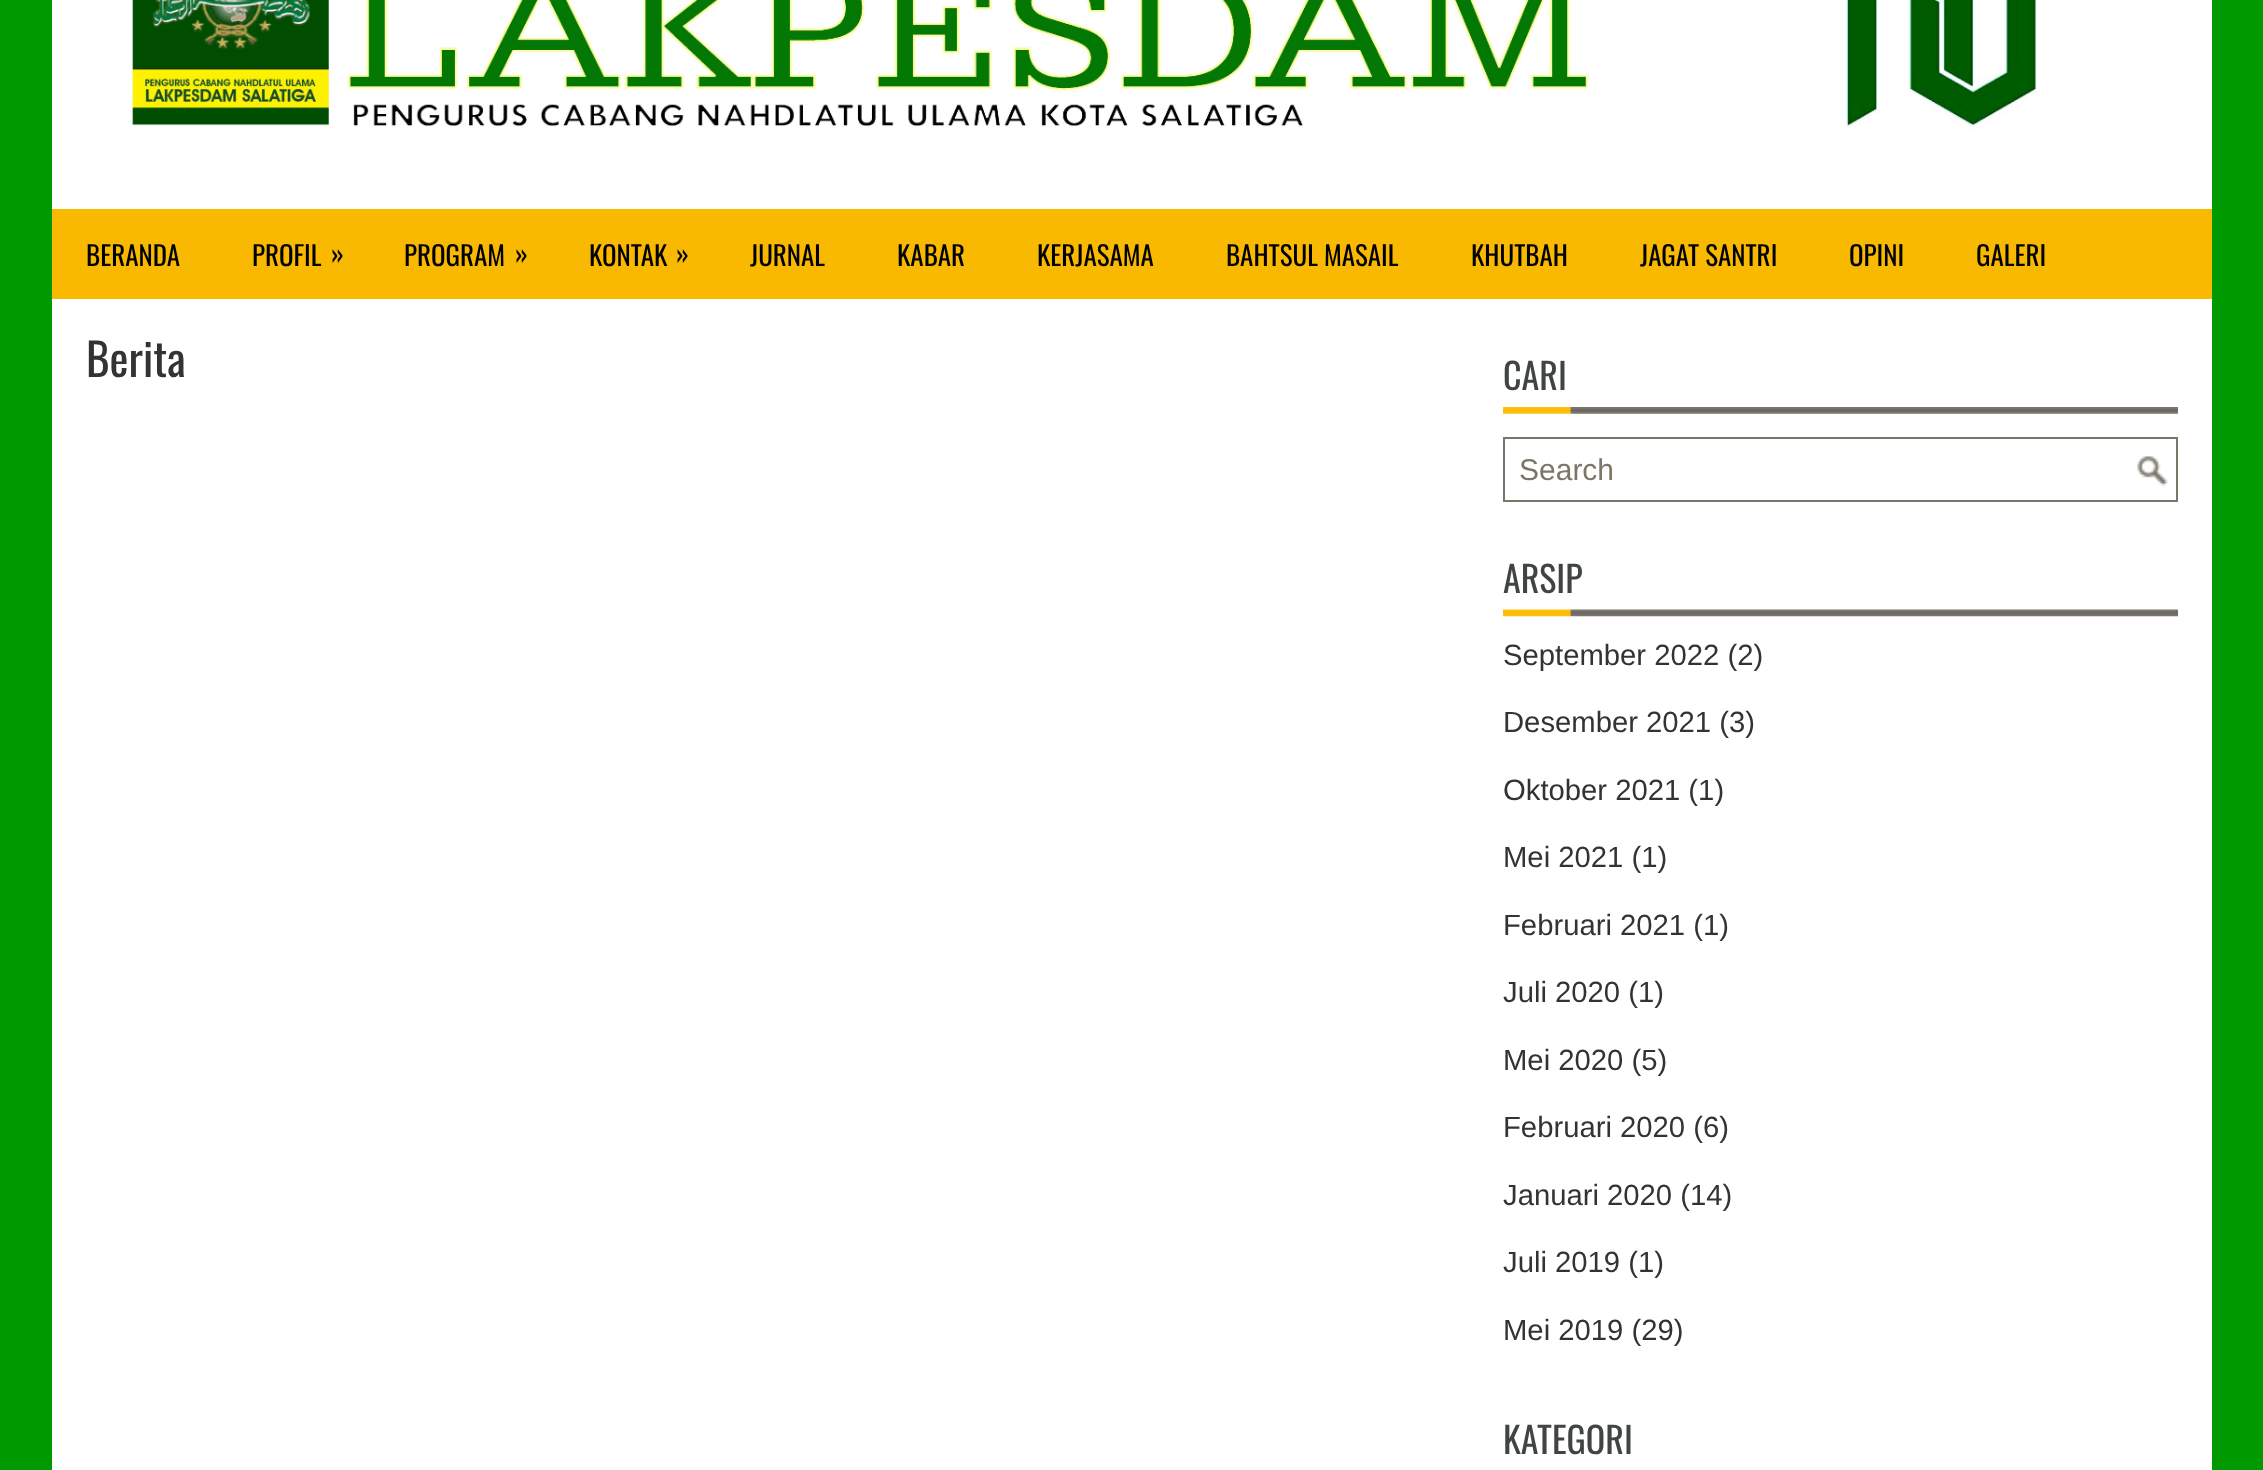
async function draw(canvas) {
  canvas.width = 2263;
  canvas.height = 1470;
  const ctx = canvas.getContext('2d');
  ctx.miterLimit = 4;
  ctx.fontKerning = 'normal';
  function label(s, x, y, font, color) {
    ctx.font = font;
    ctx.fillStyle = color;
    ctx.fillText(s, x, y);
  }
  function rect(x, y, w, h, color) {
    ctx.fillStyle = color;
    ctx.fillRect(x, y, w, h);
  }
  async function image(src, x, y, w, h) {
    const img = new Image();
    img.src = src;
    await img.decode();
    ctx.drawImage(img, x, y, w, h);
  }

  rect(0, 0, 2263, 1470, '#090');
  rect(52, 0, 2160, 209, '#fff');
  await image('assets/img1.png', 132, 0, 1905, 130);
  rect(52, 209, 2160, 90, '#f9b900');
  label('BERANDA', 86, 266, '27px Oswald', '#000');
  label('PROFIL', 252, 266, '27px Oswald', '#000');
  label('»', 331, 264, '27px Oswald', '#000');
  label('PROGRAM', 404, 266, '27px Oswald', '#000');
  label('»', 515, 264, '27px Oswald', '#000');
  label('KONTAK', 589, 266, '27px Oswald', '#000');
  label('»', 676, 264, '27px Oswald', '#000');
  label('JURNAL', 750, 266, '27px Oswald', '#000');
  label('KABAR', 897, 266, '27px Oswald', '#000');
  label('KERJASAMA', 1037, 266, '27px Oswald', '#000');
  label('BAHTSUL MASAIL', 1226, 266, '27px Oswald', '#000');
  label('KHUTBAH', 1471, 266, '27px Oswald', '#000');
  label('JAGAT SANTRI', 1640, 266, '27px Oswald', '#000');
  label('OPINI', 1849, 266, '27px Oswald', '#000');
  label('GALERI', 1976, 266, '27px Oswald', '#000');
  rect(52, 299, 2160, 1171, '#fff');
  label('Berita', 86, 377, '45px Oswald', '#333');
  await image('assets/img2.png', 1503, 407, 675, 7);
  label('CARI', 1503, 390, '36px Oswald', '#414445');
  await image('assets/img3.png', 2137, 456, 31, 31);
  ctx.strokeStyle = '#7a7669';
  ctx.lineWidth = 2;
  ctx.strokeRect(1504, 438, 673, 63);
  label('Search', 1519, 480, '30px Liberation Sans', '#7a7669');
  await image('assets/img4.png', 1503, 609, 675, 8);
  label('ARSIP', 1503, 593, '36px Oswald', '#414445');
  label('September 2022 (2)', 1503, 665, '29.25px Liberation Sans', '#333');
  label('Desember 2021 (3)', 1503, 732, '29.25px Liberation Sans', '#333');
  label('Oktober 2021 (1)', 1503, 800, '29.25px Liberation Sans', '#333');
  label('Mei 2021 (1)', 1503, 867, '29.25px Liberation Sans', '#333');
  label('Februari 2021 (1)', 1503, 935, '29.25px Liberation Sans', '#333');
  label('Juli 2020 (1)', 1503, 1002, '29.25px Liberation Sans', '#333');
  label('Mei 2020 (5)', 1503, 1070, '29.25px Liberation Sans', '#333');
  label('Februari 2020 (6)', 1503, 1137, '29.25px Liberation Sans', '#333');
  label('Januari 2020 (14)', 1503, 1205, '29.25px Liberation Sans', '#333');
  label('Juli 2019 (1)', 1503, 1272, '29.25px Liberation Sans', '#333');
  label('Mei 2019 (29)', 1503, 1340, '29.25px Liberation Sans', '#333');
  label('KATEGORI', 1503, 1454, '36px Oswald', '#414445');
}

draw(document.querySelector('canvas'));
